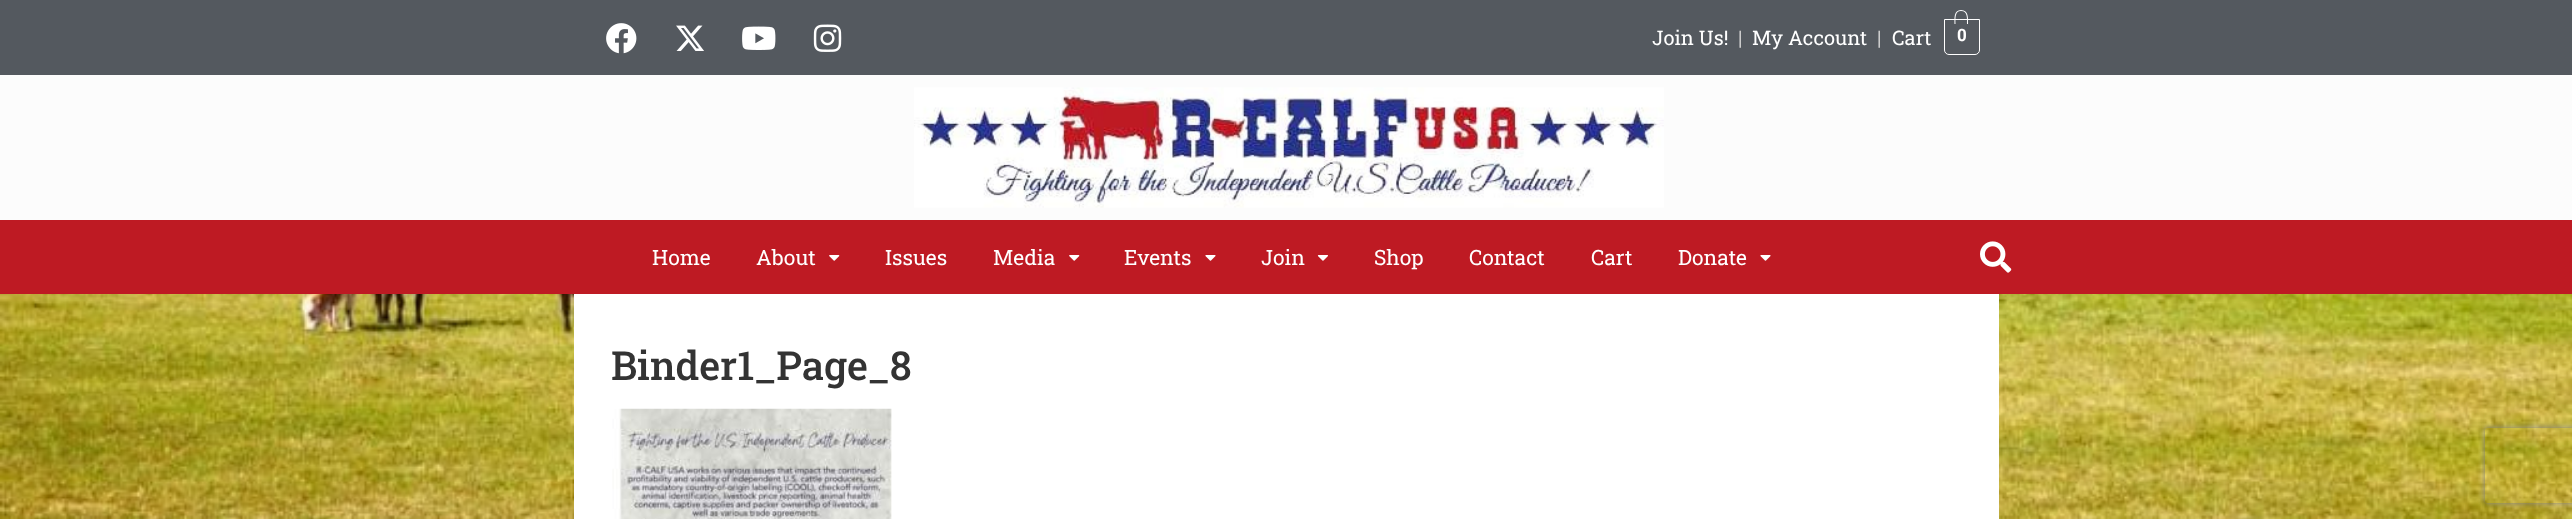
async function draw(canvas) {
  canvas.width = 2572;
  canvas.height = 519;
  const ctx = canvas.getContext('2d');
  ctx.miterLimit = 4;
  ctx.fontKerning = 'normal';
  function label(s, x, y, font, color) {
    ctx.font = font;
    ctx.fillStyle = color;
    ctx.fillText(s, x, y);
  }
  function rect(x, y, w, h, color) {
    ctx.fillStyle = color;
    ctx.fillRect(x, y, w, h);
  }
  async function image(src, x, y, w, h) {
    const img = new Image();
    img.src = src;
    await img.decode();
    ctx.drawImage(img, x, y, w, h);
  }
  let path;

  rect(0, 0, 2572, 519, '#fff');
  await image('assets/img1.png', 0, 294, 2572, 225);
  rect(0, 0, 2572, 75, '#54595f');
  await image('assets/img2.png', 606, 23, 31, 31);
  await image('assets/img3.png', 676, 25, 28, 26);
  await image('assets/img4.png', 742, 26, 34, 24);
  await image('assets/img5.png', 813, 24, 29, 28);
  label('Join Us!', 1652, 45, '20px Roboto Slab', '#fff');
  label('|', 1738, 45, '20px Roboto Slab', '#ccc');
  label('My Account', 1752, 45, '20px Roboto Slab', '#fff');
  label('|', 1877, 45, '20px Roboto Slab', '#ccc');
  label('Cart', 1892, 45, '20px Roboto Slab', '#fff');
  ctx.beginPath();
  ctx.roundRect(1944.5, 19.5, 35, 35, [0, 0, 4.5, 4.5]);
  ctx.strokeStyle = '#fff';
  ctx.stroke();
  path = new Path2D('M1961 10C1969 10 1968 18.5 1968 24H1954.5C1954.5 18.5 1953.5 10 1961 10ZM1961 11C1968 11 1967 19 1967 24H1955.5C1955.5 19 1954.5 11 1961 11Z');
  ctx.fill(path, 'evenodd');
  label('0', 1957, 41, 'bold 17px Roboto', '#fff');
  rect(0, 75, 2572, 145, '#fcfcfc');
  await image('assets/img6.png', 914, 87, 750, 121);
  rect(0, 220, 2572, 74, '#be1a23');
  label('Home', 652, 265, '21px Roboto Slab', '#fff');
  label('About', 756, 265, '21px Roboto Slab', '#fff');
  await image('assets/img7.png', 829, 255, 11, 6);
  label('Issues', 885, 265, '21px Roboto Slab', '#fff');
  label('Media', 993, 265, '21px Roboto Slab', '#fff');
  await image('assets/img7.png', 1069, 255, 11, 6);
  label('Events', 1124, 265, '21px Roboto Slab', '#fff');
  await image('assets/img8.png', 1205, 255, 11, 6);
  label('Join', 1261, 265, '21px Roboto Slab', '#fff');
  await image('assets/img9.png', 1317, 255, 11, 6);
  label('Shop', 1374, 265, '21px Roboto Slab', '#fff');
  label('Contact', 1469, 265, '21px Roboto Slab', '#fff');
  label('Cart', 1591, 265, '21px Roboto Slab', '#fff');
  label('Donate', 1678, 265, '21px Roboto Slab', '#fff');
  await image('assets/img8.png', 1760, 255, 11, 6);
  await image('assets/img10.png', 1980, 241, 32, 32);
  rect(574, 294, 1425, 225, '#fff');
  label('Binder1_Page_8', 611, 380, '500 40px Roboto Slab', '#333');
  await image('assets/img11.png', 612, 408, 280, 111);
  ctx.save();
  path = new Path2D('M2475 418H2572V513H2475ZM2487.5 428H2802.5C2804 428 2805 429 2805 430.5V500.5C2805 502 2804 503 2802.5 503H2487.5C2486 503 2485 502 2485 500.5V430.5C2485 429 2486 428 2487.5 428Z');
  ctx.clip(path, 'evenodd');
  ctx.fillStyle = '#808080';
  ctx.filter = 'blur(3px)';
  ctx.beginPath();
  ctx.roundRect(2485, 428, 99, 75, 2.5);
  ctx.fill();
  ctx.filter = 'none';
  ctx.restore();
}

draw(document.querySelector('canvas'));
